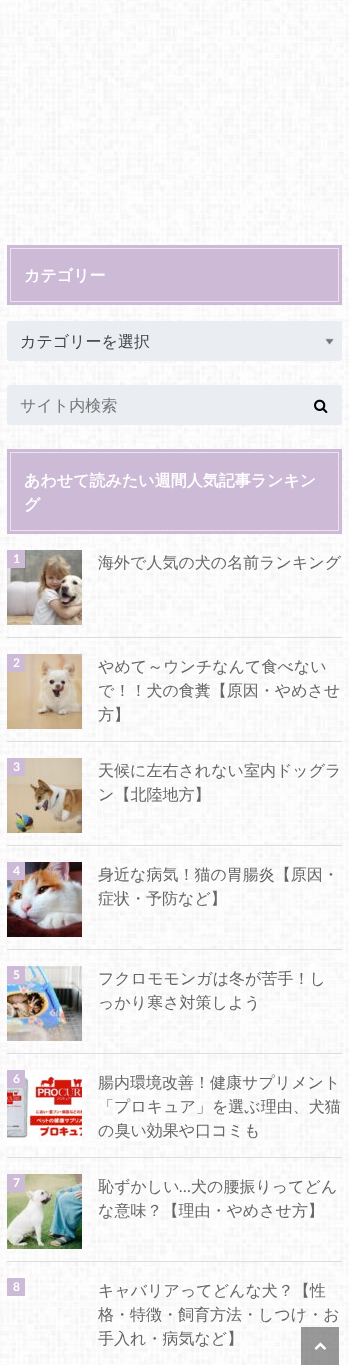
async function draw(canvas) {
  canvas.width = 349;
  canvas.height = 1365;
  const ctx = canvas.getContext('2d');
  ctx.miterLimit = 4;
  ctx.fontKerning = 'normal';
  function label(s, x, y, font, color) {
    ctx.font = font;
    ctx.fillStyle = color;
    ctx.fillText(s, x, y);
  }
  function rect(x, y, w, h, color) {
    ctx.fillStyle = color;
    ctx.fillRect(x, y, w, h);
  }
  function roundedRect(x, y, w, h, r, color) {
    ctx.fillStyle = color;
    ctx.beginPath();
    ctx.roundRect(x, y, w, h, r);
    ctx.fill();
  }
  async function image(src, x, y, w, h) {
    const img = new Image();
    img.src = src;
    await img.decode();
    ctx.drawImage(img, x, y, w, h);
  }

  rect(0, 0, 349, 1365, '#fff');
  await image('assets/img1.png', 0, 0, 349, 1365);
  rect(7, 245, 335, 60, '#ccbad6');
  ctx.strokeStyle = '#ebe3ef';
  ctx.strokeRect(10.5, 248.5, 328, 53);
  label('カテゴリー', 24, 281, 'bold 16px WenQuanYi Zen Hei', '#fff');
  roundedRect(7, 321, 335, 40, 3, '#eaedf2');
  await image('assets/img2.png', 325, 338, 9, 7);
  label('カテゴリーを選択', 20, 347, '500 16px WenQuanYi Zen Hei', '#444');
  roundedRect(7, 385, 335, 40, 3, '#eaedf2');
  label('サイト内検索', 20, 411, '500 16px WenQuanYi Zen Hei', '#757575');
  await image('assets/img3.png', 314, 399, 14, 14);
  rect(7, 449, 335, 85, '#ccbad6');
  ctx.strokeRect(10.5, 452.5, 328, 78);
  label('あわせて読みたい週間人気記事ランキン', 24, 486, 'bold 16px WenQuanYi Zen Hei', '#fff');
  label('グ', 24, 510, 'bold 16px WenQuanYi Zen Hei', '#fff');
  rect(7, 637, 335, 1, '#ddd');
  await image('assets/img4.png', 7, 550, 75, 75);
  rect(7, 550, 18, 18, '#ccbad6');
  label('1', 13, 563, 'bold 12px Lato', '#fff');
  label('海外で人気の犬の名前ランキング', 98, 568, '500 16px WenQuanYi Zen Hei', '#666');
  rect(7, 741, 335, 1, '#ddd');
  await image('assets/img5.png', 7, 654, 75, 75);
  rect(7, 654, 18, 18, '#ccbad6');
  label('2', 13, 667, 'bold 12px Lato', '#fff');
  label('やめて～ウンチなんて食べない', 98, 672, '500 16px WenQuanYi Zen Hei', '#666');
  label('で！！犬の食糞【原因・やめさせ', 98, 696, '500 16px WenQuanYi Zen Hei', '#666');
  label('方】', 98, 720, '500 16px WenQuanYi Zen Hei', '#666');
  rect(7, 845, 335, 1, '#ddd');
  await image('assets/img6.png', 7, 758, 75, 75);
  rect(7, 758, 18, 18, '#ccbad6');
  label('3', 13, 771, 'bold 12px Lato', '#fff');
  label('天候に左右されない室内ドッグラ', 98, 776, '500 16px WenQuanYi Zen Hei', '#666');
  label('ン【北陸地方】', 98, 800, '500 16px WenQuanYi Zen Hei', '#666');
  rect(7, 949, 335, 1, '#ddd');
  await image('assets/img7.png', 7, 862, 75, 75);
  rect(7, 862, 18, 18, '#ccbad6');
  label('4', 13, 875, 'bold 12px Lato', '#fff');
  label('身近な病気！猫の胃腸炎【原因・', 98, 880, '500 16px WenQuanYi Zen Hei', '#666');
  label('症状・予防など】', 98, 904, '500 16px WenQuanYi Zen Hei', '#666');
  rect(7, 1053, 335, 1, '#ddd');
  await image('assets/img8.png', 7, 966, 75, 75);
  rect(7, 966, 18, 18, '#ccbad6');
  label('5', 13, 979, 'bold 12px Lato', '#fff');
  label('フクロモモンガは冬が苦手！し', 98, 984, '500 16px WenQuanYi Zen Hei', '#666');
  label('っかり寒さ対策しよう', 98, 1008, '500 16px WenQuanYi Zen Hei', '#666');
  rect(7, 1157, 335, 1, '#ddd');
  await image('assets/img9.png', 7, 1070, 75, 75);
  rect(7, 1070, 18, 18, '#ccbad6');
  label('6', 13, 1083, 'bold 12px Lato', '#fff');
  label('腸内環境改善！健康サプリメント', 98, 1088, '500 16px WenQuanYi Zen Hei', '#666');
  label('「プロキュア」を選ぶ理由、犬猫', 98, 1112, '500 16px WenQuanYi Zen Hei', '#666');
  label('の臭い効果や口コミも', 98, 1136, '500 16px WenQuanYi Zen Hei', '#666');
  rect(7, 1261, 335, 1, '#ddd');
  await image('assets/img10.png', 7, 1174, 75, 75);
  rect(7, 1174, 18, 18, '#ccbad6');
  label('7', 13, 1187, 'bold 12px Lato', '#fff');
  label('恥ずかしい', 98, 1192, '500 16px WenQuanYi Zen Hei', '#666');
  label('…', 179, 1192, '16px Lato', '#666');
  label('犬の腰振りってどん', 191, 1192, '500 16px WenQuanYi Zen Hei', '#666');
  label('な意味？【理由・やめさせ方】', 98, 1216, '500 16px WenQuanYi Zen Hei', '#666');
  rect(7, 1278, 18, 18, '#ccbad6');
  label('8', 13, 1291, 'bold 12px Lato', '#fff');
  label('キャバリアってどんな犬？【性', 98, 1296, '500 16px WenQuanYi Zen Hei', '#666');
  label('格・特徴・飼育方法・しつけ・お', 98, 1320, '500 16px WenQuanYi Zen Hei', '#666');
  label('手入れ・病気など】', 98, 1344, '500 16px WenQuanYi Zen Hei', '#666');
  rect(301, 1327, 38, 38, '#33333380');
  await image('assets/img11.png', 314, 1342, 13, 8);
}

draw(document.querySelector('canvas'));
